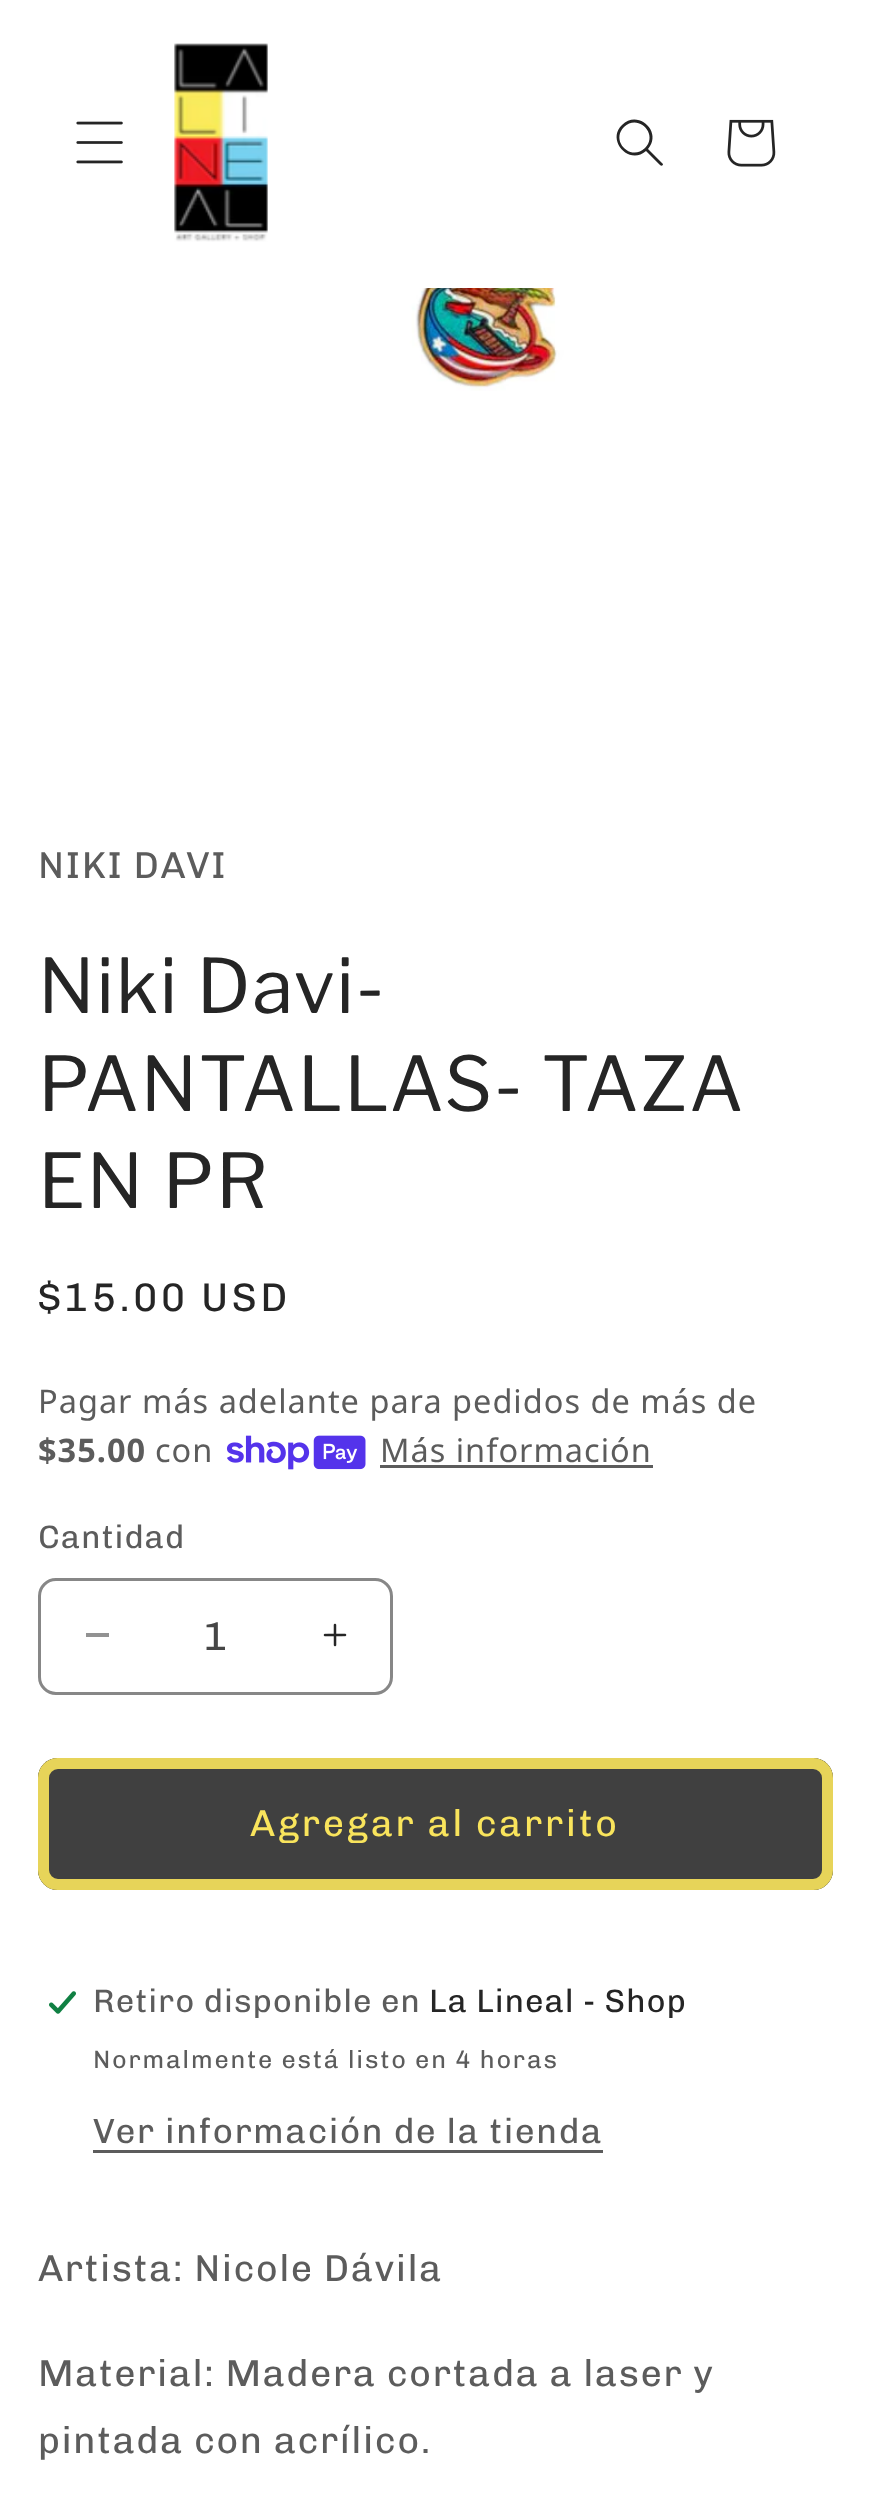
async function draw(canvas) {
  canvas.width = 869;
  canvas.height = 2505;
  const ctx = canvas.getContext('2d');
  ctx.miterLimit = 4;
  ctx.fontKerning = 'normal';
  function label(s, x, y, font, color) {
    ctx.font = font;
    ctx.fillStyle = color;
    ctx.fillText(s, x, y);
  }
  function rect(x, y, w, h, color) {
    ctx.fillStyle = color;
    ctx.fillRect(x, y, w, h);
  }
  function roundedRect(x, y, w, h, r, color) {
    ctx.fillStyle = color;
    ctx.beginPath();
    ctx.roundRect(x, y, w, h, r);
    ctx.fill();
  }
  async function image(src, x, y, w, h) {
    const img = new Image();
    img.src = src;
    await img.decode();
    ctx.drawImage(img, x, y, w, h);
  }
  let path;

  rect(0, 0, 869, 2505, '#fff');
  await image('assets/img1.png', 76, 121, 47, 43);
  await image('assets/img2.png', 174, 43, 94, 199);
  ctx.fillStyle = '#252525';
  path = new Path2D('M645 148C631 162 610 141 624 127C638 113 659 134 645 148M646 151C629 166 606 140 622 125C638 109 663 132 648 149L663 164C663 166 661 166 660 165Z');
  ctx.fill(path, 'evenodd');
  await image('assets/img3.png', 727, 119, 49, 48);
  await image('assets/img4.png', 293, 288, 297, 103);
  ctx.letterSpacing = '1.5px';
  label('NIKI DAVI', 38, 878, '37.5px Chivo', '#5c5c5c');
  label('Niki Davi-', 38, 1013, '75px Libre Franklin', '#252525');
  label('PANTALLAS- TAZA', 38, 1111, '75px Libre Franklin', '#252525');
  label('EN PR', 38, 1208, '75px Libre Franklin', '#252525');
  ctx.letterSpacing = '3.25px';
  label('$15.00 USD', 38, 1311, '40px Chivo', '#252525');
  ctx.letterSpacing = '1px';
  label('Pagar más adelante para pedidos de más de', 38, 1413, '32.5px Noto Sans', '#5c5c5c');
  label('$35.00', 38, 1462, 'bold 32.5px Noto Sans', '#5c5c5c');
  label('con', 155, 1462, '32.5px Noto Sans', '#5c5c5c');
  await image('assets/img5.png', 226, 1435, 140, 35);
  label('Más información', 380, 1462, '32.5px Noto Sans', '#5c5c5c');
  rect(380, 1465, 273, 3, '#5c5c5c');
  label('Cantidad', 38, 1548, '32.5px Chivo', '#5c5c5c');
  rect(86, 1633, 23, 4, '#929292');
  await image('assets/img6.png', 323, 1623, 24, 24);
  ctx.beginPath();
  ctx.roundRect(39.5, 1579.5, 352, 114, 16.5);
  ctx.strokeStyle = '#878787';
  ctx.lineWidth = 3;
  ctx.stroke();
  ctx.letterSpacing = '0px';
  label('1', 203, 1650, '40px Chivo', '#464646');
  roundedRect(38, 1758, 795, 132, 20, '#404040');
  ctx.beginPath();
  ctx.roundRect(43, 1763, 785, 122, 15);
  ctx.strokeStyle = '#404040';
  ctx.lineWidth = 10;
  ctx.stroke();
  ctx.beginPath();
  ctx.roundRect(43.5, 1763.5, 784, 121, 14.5);
  ctx.strokeStyle = '#f9e45ce6';
  ctx.lineWidth = 11;
  ctx.stroke();
  ctx.letterSpacing = '2.5px';
  label('Agregar al carrito', 250, 1836, '37.5px Chivo', '#f9e45c');
  await image('assets/img7.png', 49, 1991, 27, 23);
  ctx.letterSpacing = '1px';
  label('Retiro disponible en', 93, 2012, '32.5px Chivo', '#5c5c5c');
  label('La Lineal - Shop', 429, 2012, '32.5px Chivo', '#252525');
  ctx.letterSpacing = '1.75px';
  label('Normalmente está listo en 4 horas', 93, 2068, '25px Chivo', '#5c5c5c');
  ctx.letterSpacing = '1.5px';
  label('Ver información de la tienda', 93, 2143, '35px Chivo', '#5c5c5c');
  rect(93, 2150, 510, 3, '#5c5c5c');
  label('Artista: Nicole Dávila', 38, 2281, '37.5px Chivo', '#5c5c5c');
  label('Material: Madera cortada a laser y', 38, 2386, '37.5px Chivo', '#5c5c5c');
  label('pintada con acrílico.', 38, 2453, '37.5px Chivo', '#5c5c5c');
}

draw(document.querySelector('canvas'));
